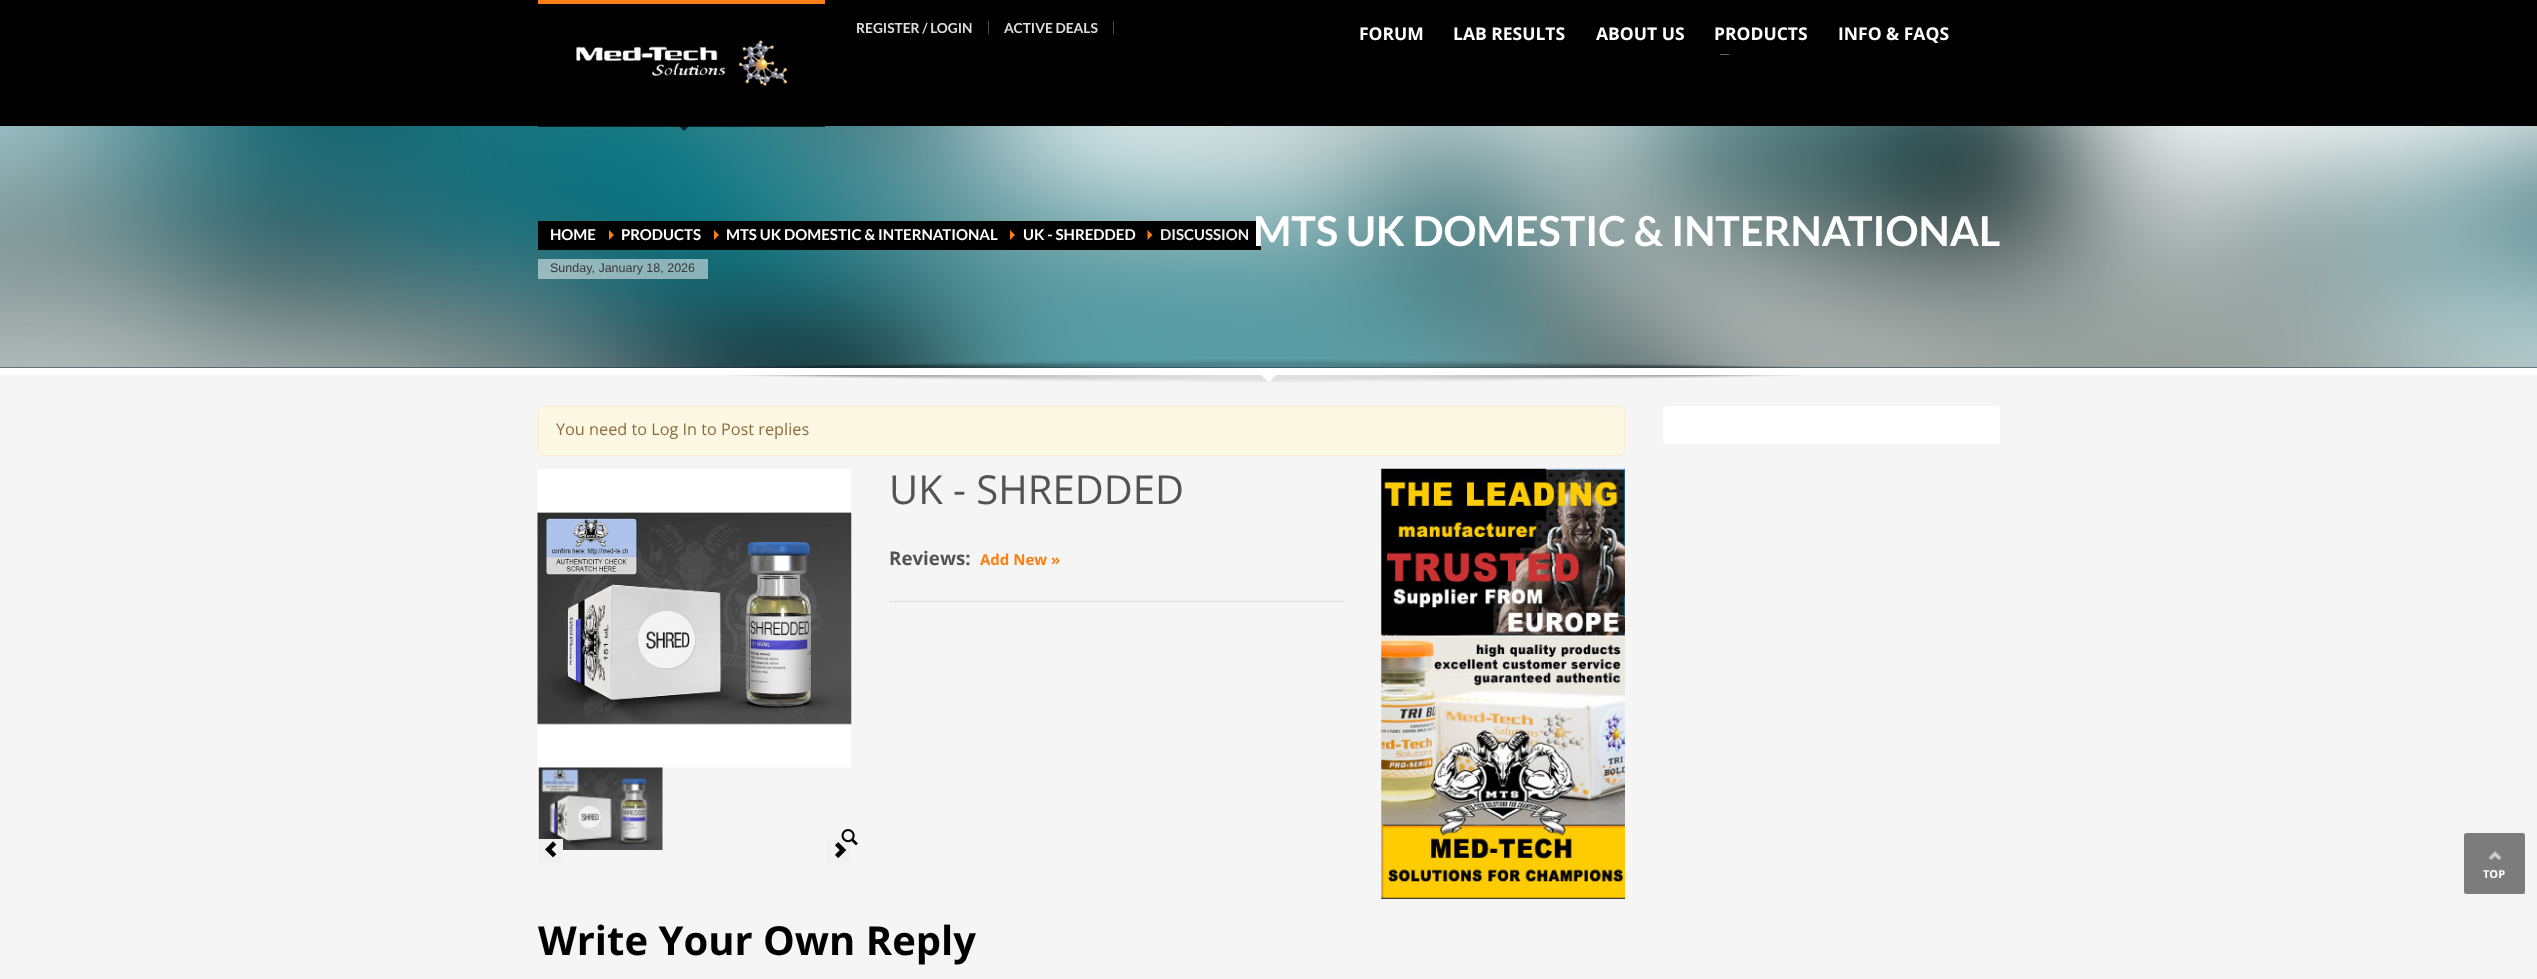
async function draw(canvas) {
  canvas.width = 2537;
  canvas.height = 979;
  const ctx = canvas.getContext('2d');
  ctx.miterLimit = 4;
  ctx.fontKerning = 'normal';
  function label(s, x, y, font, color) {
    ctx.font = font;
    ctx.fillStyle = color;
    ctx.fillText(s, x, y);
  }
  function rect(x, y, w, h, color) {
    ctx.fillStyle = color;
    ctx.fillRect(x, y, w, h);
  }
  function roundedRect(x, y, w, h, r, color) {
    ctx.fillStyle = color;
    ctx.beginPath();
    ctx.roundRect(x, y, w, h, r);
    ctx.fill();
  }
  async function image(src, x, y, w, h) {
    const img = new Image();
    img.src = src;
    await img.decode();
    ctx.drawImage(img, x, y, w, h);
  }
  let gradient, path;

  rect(0, 0, 2537, 979, '#f5f5f5');
  rect(0, 0, 2537, 126, '#000');
  rect(538, 0, 287, 4, '#fa7f14');
  gradient = ctx.createLinearGradient(1269, 0, 1269, 368);
  gradient.addColorStop(0, '#345370');
  gradient.addColorStop(1, '#1a2a38');
  ctx.fillStyle = gradient;
  ctx.fillRect(0, 367, 2537, 1);
  await image('assets/img2.png', 0, 126, 2537, 242);
  rect(538, 126, 287, 1, '#000000b3');
  await image('assets/img1.png', 576, 40, 211, 46);
  path = new Path2D('M677.5 125H690L684 131Z');
  ctx.fill(path);
  rect(988, 21, 1, 13, '#4f4f4f');
  label('REGISTER / LOGIN', 856, 33, 'bold 13.75px Lato', '#ddd');
  rect(1113, 21, 1, 13, '#4f4f4f');
  label('ACTIVE DEALS', 1004, 33, 'bold 13.75px Lato', '#ddd');
  label('FORUM', 1359, 40, 'bold 17.5px Open Sans', '#fff');
  label('LAB RESULTS', 1453, 40, 'bold 17.5px Open Sans', '#fff');
  label('ABOUT US', 1596, 40, 'bold 17.5px Open Sans', '#fff');
  label('PRODUCTS', 1714, 40, 'bold 17.5px Open Sans', '#fff');
  rect(1720, 54, 9, 1, '#666');
  label('INFO & FAQS', 1838, 40, 'bold 17.5px Open Sans', '#fff');
  rect(0, 368, 2537, 7, '#fff');
  rect(538, 221, 723, 29, '#000');
  label('HOME', 550, 240, 'bold 15px Lato', '#fff');
  ctx.fillStyle = '#fa7f14';
  path = new Path2D('M609 240V230L614 235Z');
  ctx.fill(path);
  label('PRODUCTS', 621, 240, 'bold 15px Lato', '#fff');
  ctx.fillStyle = '#fa7f14';
  path = new Path2D('M714 240V230L719 235Z');
  ctx.fill(path);
  label('MTS UK DOMESTIC & INTERNATIONAL', 726, 240, 'bold 15px Lato', '#fff');
  ctx.fillStyle = '#fa7f14';
  path = new Path2D('M1010 240V230L1015 235Z');
  ctx.fill(path);
  label('UK - SHREDDED', 1023, 240, 'bold 15px Lato', '#fff');
  ctx.fillStyle = '#fa7f14';
  path = new Path2D('M1147.5 240V230L1152.5 235Z');
  ctx.fill(path);
  label('DISCUSSION', 1160, 240, 'bold 15px Lato', '#eee');
  rect(538, 259, 170, 20, '#ffffff80');
  label('Sunday, January 18, 2026', 550, 272, '12.5px Liberation Sans', '#383838');
  label('MTS UK DOMESTIC & INTERNATIONAL', 1253, 246, 'bold 41.25px Lato', '#fff');
  await image('assets/img3.png', 744, 359, 1057, 9);
  await image('assets/img4.png', 731, 375, 1070, 8);
  path = new Path2D('M1261 375H1276L1269 382.5Z');
  ctx.fill(path);
  ctx.fillStyle = '#fcf8e3';
  ctx.beginPath();
  ctx.roundRect(538.5, 406.5, 1086, 49, 4.5);
  ctx.fill();
  ctx.strokeStyle = '#faebcc';
  ctx.stroke();
  label('You need to Log In to Post replies', 556, 435, '16.25px Open Sans', '#8a6d3b');
  await image('assets/img5.png', 537, 469, 315, 299);
  await image('assets/img6.png', 537, 767, 126, 83);
  rect(826, 839, 25, 24, '#f1f1f1');
  await image('assets/img9.png', 835, 842, 12, 16);
  await image('assets/img7.png', 841, 829, 17, 17);
  rect(538, 839, 25, 24, '#f1f1f1');
  await image('assets/img8.png', 545, 841, 12, 17);
  label('UK - SHREDDED', 889, 504, '40px Open Sans', '#535353');
  rect(889, 601, 455, 1, '#ddd');
  label('Reviews:', 889, 565, 'bold 18.75px Open Sans', '#535353');
  label('Add New »', 980, 565, 'bold 15px Open Sans', '#fa7f14');
  label('Write Your Own Reply', 538, 955, 'bold 40px Open Sans', '#000');
  await image('assets/img10.png', 1381, 468, 244, 431);
  roundedRect(1663, 406, 337, 38, 4, '#fff');
  roundedRect(2464, 833, 61, 61, 2.5, '#7c7c7c');
  await image('assets/img11.png', 2488, 851, 14, 9);
  label('TOP', 2483, 878, 'bold 11px Open Sans', '#fff');
}

draw(document.querySelector('canvas'));
